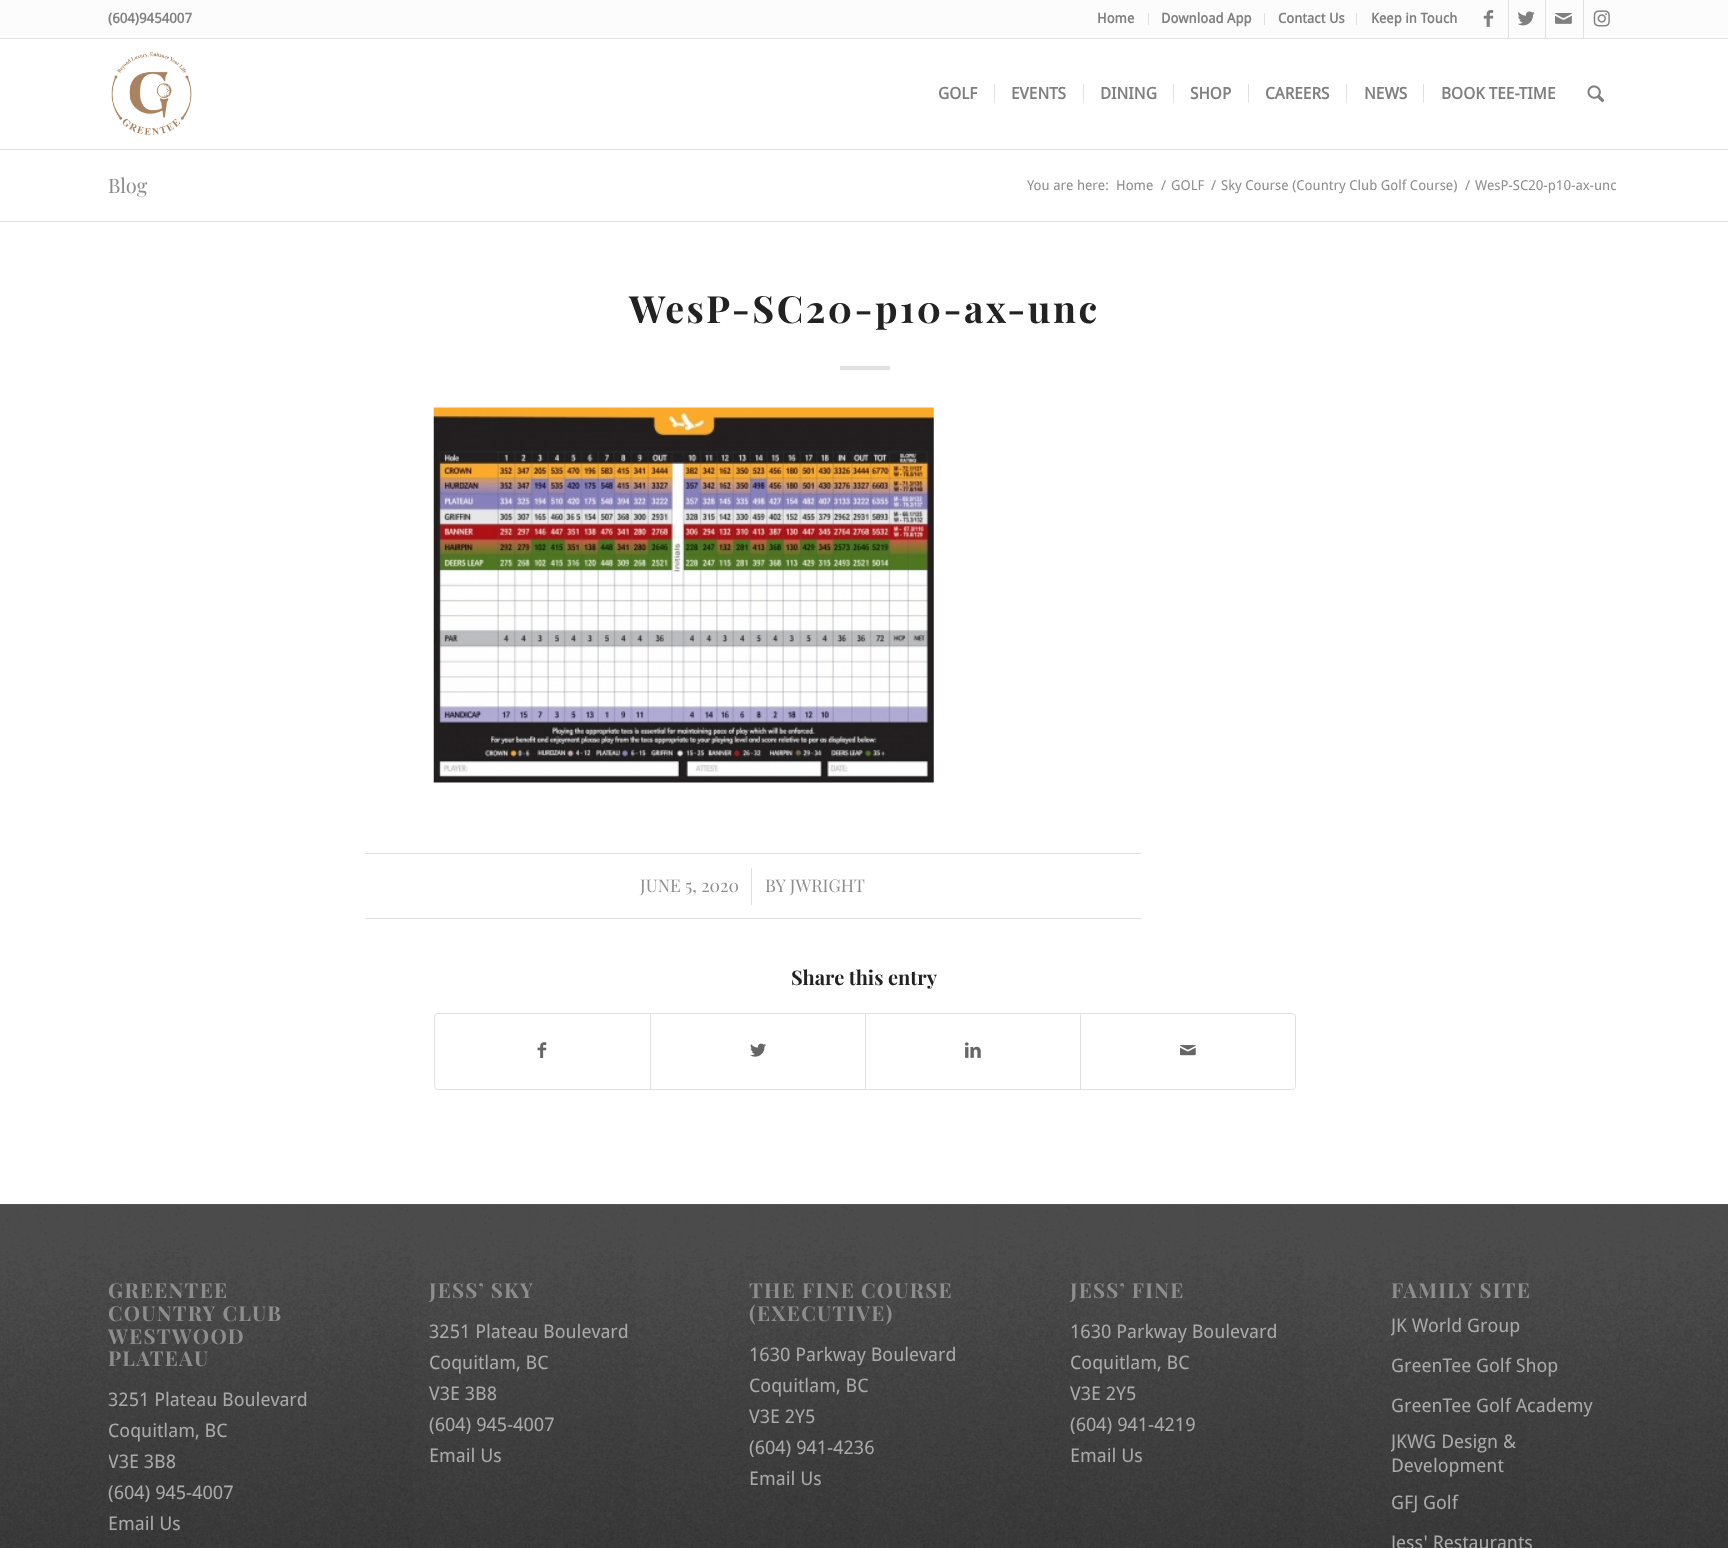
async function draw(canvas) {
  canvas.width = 1728;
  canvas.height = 1548;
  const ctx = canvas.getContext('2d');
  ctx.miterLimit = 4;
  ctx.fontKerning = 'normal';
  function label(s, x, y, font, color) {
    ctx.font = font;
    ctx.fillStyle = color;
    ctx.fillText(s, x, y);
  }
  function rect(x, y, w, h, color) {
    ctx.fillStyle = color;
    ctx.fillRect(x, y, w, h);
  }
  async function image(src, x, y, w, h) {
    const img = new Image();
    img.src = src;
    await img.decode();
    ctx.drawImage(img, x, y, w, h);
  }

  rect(0, 0, 1728, 1548, '#fff');
  rect(0, 0, 1728, 38, '#fcfcfc');
  rect(0, 38, 1728, 1, '#e1e1e1');
  label('(604)9454007', 108, 23, 'bold 13.75px Droid Sans', '#808080');
  rect(1148, 13, 1, 12, '#e1e1e1');
  label('Home', 1097, 23, 'bold 13.75px Droid Sans', '#808080');
  rect(1264, 13, 1, 12, '#e1e1e1');
  label('Download App', 1161, 23, 'bold 13.75px Droid Sans', '#808080');
  rect(1356, 13, 1, 12, '#e1e1e1');
  label('Contact Us', 1278, 23, 'bold 13.75px Droid Sans', '#808080');
  label('Keep in Touch', 1371, 23, 'bold 13.75px Droid Sans', '#808080');
  rect(1508, 0, 1, 38, '#e1e1e1');
  await image('assets/img1.png', 1483, 10, 11, 17);
  rect(1545, 0, 1, 38, '#e1e1e1');
  await image('assets/img2.png', 1517, 11, 18, 15);
  rect(1583, 0, 1, 38, '#e1e1e1');
  await image('assets/img3.png', 1555, 13, 17, 11);
  await image('assets/img4.png', 1593, 10, 17, 17);
  rect(0, 149, 1728, 1, '#e1e1e1');
  await image('assets/img5.png', 111, 52, 81, 84);
  label('GOLF', 938, 99, 'bold 16.25px Droid Sans', '#808080');
  label('EVENTS', 1011, 99, 'bold 16.25px Droid Sans', '#808080');
  rect(994, 84, 1, 19, '#e1e1e1');
  label('DINING', 1100, 99, 'bold 16.25px Droid Sans', '#808080');
  rect(1083, 84, 1, 19, '#e1e1e1');
  label('SHOP', 1190, 99, 'bold 16.25px Droid Sans', '#808080');
  rect(1173, 84, 1, 19, '#e1e1e1');
  label('CAREERS', 1265, 99, 'bold 16.25px Droid Sans', '#808080');
  rect(1248, 84, 1, 19, '#e1e1e1');
  label('NEWS', 1364, 99, 'bold 16.25px Droid Sans', '#808080');
  rect(1346, 84, 1, 19, '#e1e1e1');
  label('BOOK TEE-TIME', 1441, 99, 'bold 16.25px Droid Sans', '#808080');
  rect(1423, 84, 1, 19, '#e1e1e1');
  await image('assets/img6.png', 1587, 85, 18, 18);
  label('Blog', 108, 193, '20px Playfair Display', '#8d8d8d');
  label('You are here:', 1027, 190, '13.75px Droid Sans', '#8d8d8d');
  label('Home', 1116, 190, '13.75px Droid Sans', '#8d8d8d');
  label('/', 1161, 190, '13.75px Droid Sans', '#8d8d8d');
  label('GOLF', 1171, 190, '13.75px Droid Sans', '#8d8d8d');
  label('/', 1211, 190, '13.75px Droid Sans', '#8d8d8d');
  label('Sky Course (Country Club Golf Course)', 1221, 190, '13.75px Droid Sans', '#8d8d8d');
  label('/', 1465, 190, '13.75px Droid Sans', '#8d8d8d');
  label('WesP-SC20-p10-ax-unc', 1475, 190, '13.75px Droid Sans', '#8d8d8d');
  rect(0, 221, 1728, 1, '#e1e1e1');
  ctx.letterSpacing = '2.5px';
  label('WesP-SC20-p10-ax-unc', 629, 323, 'bold 37.5px Playfair Display', '#222');
  rect(840, 366, 50, 4, '#e1e1e1');
  await image('assets/img7.png', 433, 407, 501, 376);
  rect(365, 853, 776, 1, '#e1e1e1');
  rect(365, 918, 776, 1, '#e1e1e1');
  ctx.letterSpacing = '0px';
  label('JUNE 5, 2020', 640, 892, '17.5px Playfair Display', '#8d8d8d');
  rect(751, 868, 1, 37, '#e1e1e1');
  label('BY JWRIGHT', 765, 892, '17.5px Playfair Display', '#8d8d8d');
  label('Share this entry', 791, 985, 'bold 20px Playfair Display', '#222');
  ctx.beginPath();
  ctx.roundRect(434.5, 1013.5, 861, 76, 3.5);
  ctx.strokeStyle = '#e1e1e1';
  ctx.stroke();
  await image('assets/img8.png', 537, 1042, 10, 16);
  rect(650, 1014, 1, 75, '#e1e1e1');
  await image('assets/img9.png', 750, 1043, 16, 14);
  rect(865, 1014, 1, 75, '#e1e1e1');
  await image('assets/img10.png', 965, 1042, 16, 16);
  rect(1080, 1014, 1, 75, '#e1e1e1');
  await image('assets/img11.png', 1180, 1045, 16, 11);
  rect(0, 1205, 1728, 343, '#333');
  await image('assets/img12.png', 0, 1205, 1728, 343);
  rect(0, 1204, 1728, 1, '#555');
  ctx.letterSpacing = '1.25px';
  label('GREENTEE', 108, 1298, 'bold 20.6px Playfair Display', '#8d8d8d');
  label('COUNTRY CLUB', 108, 1321, 'bold 20.6px Playfair Display', '#8d8d8d');
  label('WESTWOOD', 108, 1344, 'bold 20.6px Playfair Display', '#8d8d8d');
  label('PLATEAU', 108, 1366, 'bold 20.6px Playfair Display', '#8d8d8d');
  ctx.letterSpacing = '0px';
  label('3251 Plateau Boulevard', 108, 1406, '18.75px Droid Sans', '#aaa');
  label('Coquitlam, BC', 108, 1437, '18.75px Droid Sans', '#aaa');
  ctx.save();
  ctx.beginPath();
  ctx.rect(109, 1261, 229, 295);
  ctx.clip();
  label('V3E 3B8', 108, 1468, '18.75px Droid Sans', '#aaa');
  ctx.restore();
  label('(604) 945-4007', 108, 1499, '18.75px Droid Sans', '#aaa');
  label('Email Us', 108, 1530, '18.75px Droid Sans', '#aaa');
  ctx.letterSpacing = '1.25px';
  label('JESS’ SKY', 429, 1298, 'bold 20.6px Playfair Display', '#8d8d8d');
  ctx.letterSpacing = '0px';
  label('3251 Plateau Boulevard', 429, 1338, '18.75px Droid Sans', '#aaa');
  label('Coquitlam, BC', 429, 1369, '18.75px Droid Sans', '#aaa');
  label('V3E 3B8', 429, 1400, '18.75px Droid Sans', '#aaa');
  label('(604) 945-4007', 429, 1431, '18.75px Droid Sans', '#aaa');
  label('Email Us', 429, 1462, '18.75px Droid Sans', '#aaa');
  ctx.letterSpacing = '1.25px';
  label('THE FINE COURSE', 749, 1298, 'bold 20.6px Playfair Display', '#8d8d8d');
  label('(EXECUTIVE)', 749, 1321, 'bold 20.6px Playfair Display', '#8d8d8d');
  ctx.letterSpacing = '0px';
  label('1630 Parkway Boulevard', 749, 1361, '18.75px Droid Sans', '#aaa');
  label('Coquitlam, BC', 749, 1392, '18.75px Droid Sans', '#aaa');
  label('V3E 2Y5', 749, 1423, '18.75px Droid Sans', '#aaa');
  label('(604) 941-4236', 749, 1454, '18.75px Droid Sans', '#aaa');
  label('Email Us', 749, 1485, '18.75px Droid Sans', '#aaa');
  ctx.letterSpacing = '1.25px';
  label('JESS’ FINE', 1070, 1298, 'bold 20.6px Playfair Display', '#8d8d8d');
  ctx.letterSpacing = '0px';
  label('1630 Parkway Boulevard', 1070, 1338, '18.75px Droid Sans', '#aaa');
  label('Coquitlam, BC', 1070, 1369, '18.75px Droid Sans', '#aaa');
  label('V3E 2Y5', 1070, 1400, '18.75px Droid Sans', '#aaa');
  label('(604) 941-4219', 1070, 1431, '18.75px Droid Sans', '#aaa');
  label('Email Us', 1070, 1462, '18.75px Droid Sans', '#aaa');
  ctx.letterSpacing = '1.25px';
  label('FAMILY SITE', 1391, 1298, 'bold 20.6px Playfair Display', '#8d8d8d');
  ctx.save();
  ctx.beginPath();
  ctx.rect(1391, 1261, 229, 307);
  ctx.clip();
  ctx.letterSpacing = '0px';
  label('JK World Group', 1391, 1332, '18.75px Droid Sans', '#aaa');
  ctx.restore();
  ctx.letterSpacing = '0px';
  label('GreenTee Golf Shop', 1391, 1372, '18.75px Droid Sans', '#aaa');
  label('GreenTee Golf Academy', 1391, 1412, '18.75px Droid Sans', '#aaa');
  ctx.save();
  ctx.beginPath();
  ctx.rect(1391, 1261, 229, 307);
  ctx.clip();
  label('JKWG Design', 1391, 1448, '18.75px Droid Sans', '#aaa');
  ctx.restore();
  label('&', 1503, 1448, '18.75px Droid Sans', '#aaa');
  label('Development', 1391, 1472, '18.75px Droid Sans', '#aaa');
  label('GFJ Golf', 1391, 1509, '18.75px Droid Sans', '#aaa');
  label('Jess\' Restaurants', 1391, 1549, '18.75px Droid Sans', '#aaa');
}

draw(document.querySelector('canvas'));
